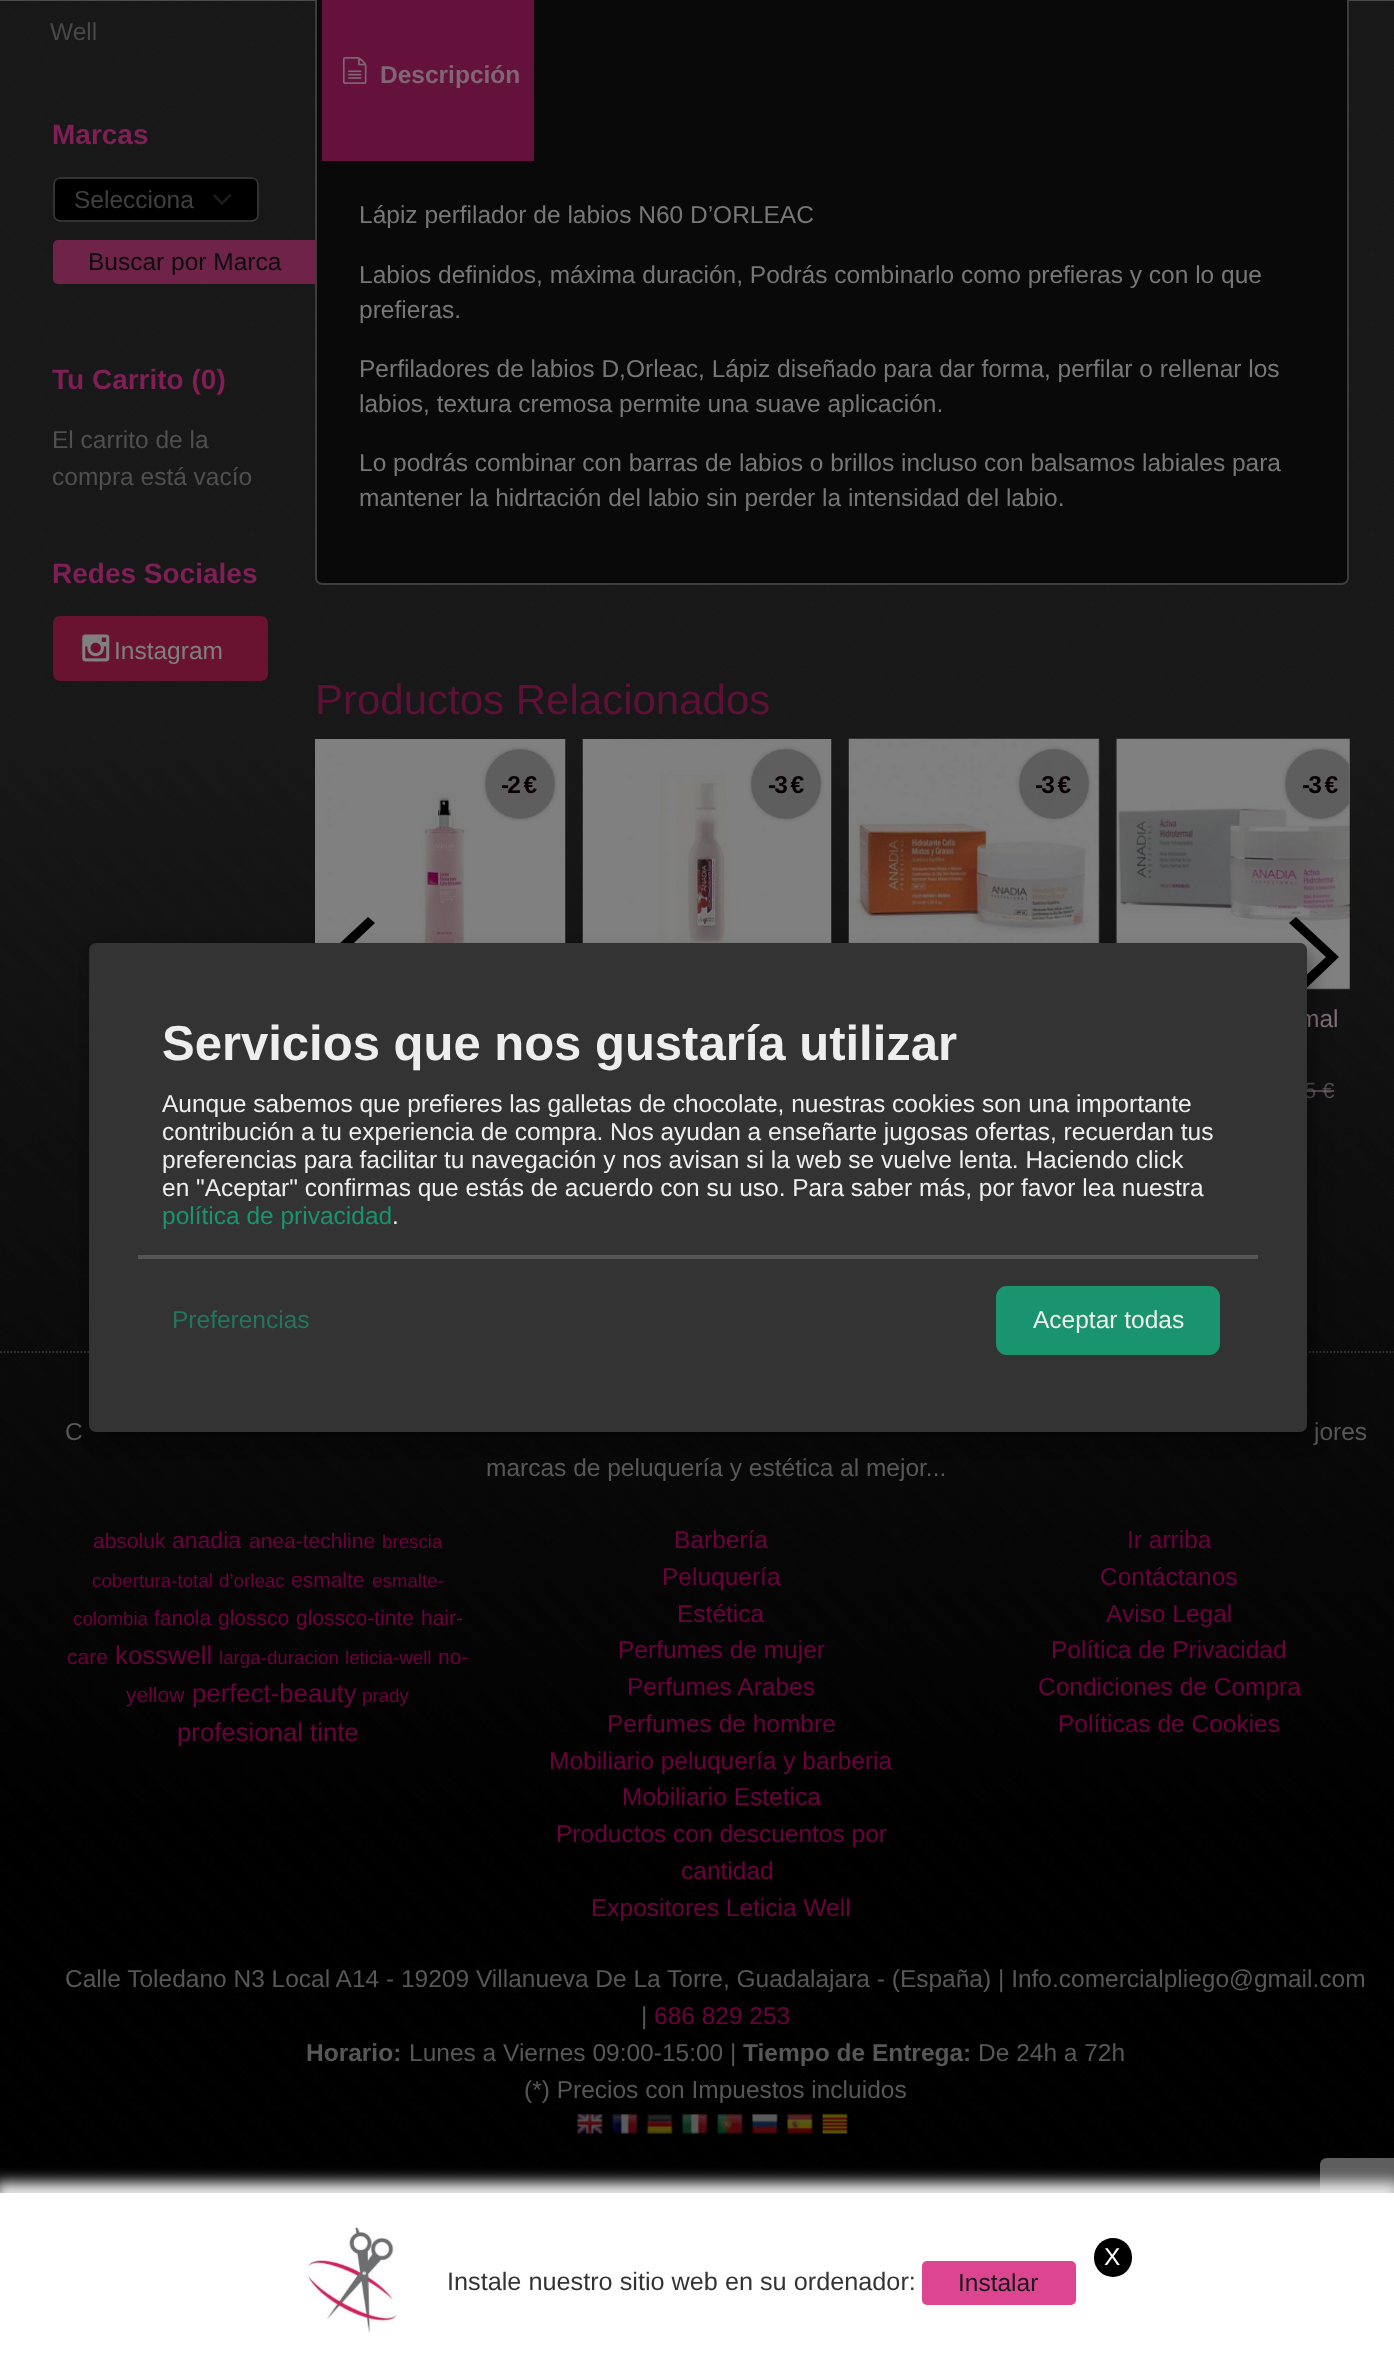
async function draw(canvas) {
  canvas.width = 1394;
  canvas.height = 2372;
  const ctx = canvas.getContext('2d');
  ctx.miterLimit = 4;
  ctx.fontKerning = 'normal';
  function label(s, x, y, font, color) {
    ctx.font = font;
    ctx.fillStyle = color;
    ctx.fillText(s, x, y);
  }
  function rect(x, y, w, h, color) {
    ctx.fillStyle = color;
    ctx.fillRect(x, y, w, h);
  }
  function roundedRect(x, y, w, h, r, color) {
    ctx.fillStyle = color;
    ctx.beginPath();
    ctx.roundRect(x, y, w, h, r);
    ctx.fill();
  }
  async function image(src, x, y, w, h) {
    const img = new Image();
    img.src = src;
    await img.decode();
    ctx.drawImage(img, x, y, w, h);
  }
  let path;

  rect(0, 0, 1394, 2372, '#fff');
  await image('assets/img1.png', 0, 0, 1394, 2193);
  label('Well', 50, 40, '24.5px Liberation Sans', '#484848');
  label('Marcas', 52, 144, 'bold 28px Liberation Sans', '#7f1f56');
  roundedRect(53, 177, 206, 45, 7, '#000');
  path = new Path2D('M214.5 195.5L222 203.5L230 195.5');
  ctx.strokeStyle = '#1a1d20';
  ctx.lineWidth = 2.6;
  ctx.lineCap = 'round';
  ctx.lineJoin = 'round';
  ctx.stroke(path);
  ctx.beginPath();
  ctx.roundRect(54, 178, 204, 43, 6);
  ctx.strokeStyle = '#323232';
  ctx.lineWidth = 2;
  ctx.lineJoin = 'miter';
  ctx.stroke();
  label('Selecciona', 74, 208, '24.5px Liberation Sans', '#404040');
  roundedRect(53, 240, 266, 44, 5, '#6f2349');
  label('Buscar por Marca', 88, 270, '24.5px Liberation Sans', '#0d0d0d');
  label('Tu Carrito (0)', 52, 389, 'bold 28px Liberation Sans', '#7f1f56');
  label('El carrito de la', 52, 448, '24.5px Liberation Sans', '#4f4f4f');
  label('compra está vacío', 52, 485, '24.5px Liberation Sans', '#4f4f4f');
  label('Redes Sociales', 52, 583, 'bold 28px Liberation Sans', '#7f1f56');
  roundedRect(53, 616, 215, 65, 7, '#691330');
  await image('assets/img2.png', 82, 634, 28, 28);
  label('Instagram', 114, 659, '24.5px Liberation Sans', '#808080');
  ctx.fillStyle = '#090909';
  ctx.beginPath();
  ctx.roundRect(316, -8, 1032, 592, 6);
  ctx.fill();
  ctx.strokeStyle = '#3c3c3c';
  ctx.stroke();
  rect(322, 0, 212, 161, '#64123b');
  await image('assets/img3.png', 342, 57, 25, 27);
  label('Descripción', 380, 83, 'bold 24.5px Liberation Sans', '#806675');
  label('Lápiz perfilador de labios N60 D’ORLEAC', 359, 223, '24.5px Liberation Sans', '#777');
  label('Labios definidos, máxima duración, Podrás combinarlo como prefieras y con lo que', 359, 283, '24.5px Liberation Sans', '#777');
  label('prefieras.', 359, 318, '24.5px Liberation Sans', '#777');
  label('Perfiladores de labios D,Orleac, Lápiz diseñado para dar forma, perfilar o rellenar los', 359, 377, '24.5px Liberation Sans', '#777');
  label('labios, textura cremosa permite una suave aplicación.', 359, 412, '24.5px Liberation Sans', '#777');
  label('Lo podrás combinar con barras de labios o brillos incluso con balsamos labiales para', 359, 471, '24.5px Liberation Sans', '#777');
  label('mantener la hidrtación del labio sin perder la intensidad del labio.', 359, 506, '24.5px Liberation Sans', '#777');
  label('Productos Relacionados', 315, 714, '42px Liberation Sans', '#5d1137');
  await image('assets/img4.png', 315, 739, 251, 204);
  ctx.save();
  path = new Path2D('M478 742H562V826H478ZM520 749C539.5 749 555 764.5 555 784C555 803.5 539.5 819 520 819C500.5 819 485 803.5 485 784C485 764.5 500.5 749 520 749Z');
  ctx.clip(path, 'evenodd');
  ctx.fillStyle = '#00000033';
  ctx.filter = 'blur(2px)';
  ctx.beginPath();
  ctx.roundRect(485, 749, 70, 70, 35);
  ctx.fill();
  ctx.filter = 'none';
  ctx.restore();
  ctx.fillStyle = '#3c3c3c80';
  ctx.beginPath();
  ctx.arc(520, 784, 35, 0, 2 * Math.PI);
  ctx.fill();
  ctx.letterSpacing = '-2px';
  label('-2 €', 501, 793, 'bold 24.5px Liberation Sans', '#080005');
  await image('assets/img5.png', 582, 739, 250, 204);
  ctx.save();
  path = new Path2D('M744 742H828V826H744ZM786 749C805.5 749 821 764.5 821 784C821 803.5 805.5 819 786 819C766.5 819 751 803.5 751 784C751 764.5 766.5 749 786 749Z');
  ctx.clip(path, 'evenodd');
  ctx.fillStyle = '#00000033';
  ctx.filter = 'blur(2px)';
  ctx.beginPath();
  ctx.roundRect(751, 749, 70, 70, 35);
  ctx.fill();
  ctx.filter = 'none';
  ctx.restore();
  ctx.fillStyle = '#3c3c3c80';
  ctx.beginPath();
  ctx.arc(786, 784, 35, 0, 2 * Math.PI);
  ctx.fill();
  label('-3 €', 768, 793, 'bold 24.5px Liberation Sans', '#080005');
  await image('assets/img6.png', 848, 738, 252, 205);
  ctx.save();
  path = new Path2D('M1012 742H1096V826H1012ZM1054 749C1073.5 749 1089 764.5 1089 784C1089 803.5 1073.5 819 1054 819C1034.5 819 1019 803.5 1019 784C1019 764.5 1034.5 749 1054 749Z');
  ctx.clip(path, 'evenodd');
  ctx.fillStyle = '#00000033';
  ctx.filter = 'blur(2px)';
  ctx.beginPath();
  ctx.roundRect(1019, 749, 70, 70, 35);
  ctx.fill();
  ctx.filter = 'none';
  ctx.restore();
  ctx.fillStyle = '#3c3c3c80';
  ctx.beginPath();
  ctx.arc(1054, 784, 35, 0, 2 * Math.PI);
  ctx.fill();
  label('-3 €', 1035, 793, 'bold 24.5px Liberation Sans', '#080005');
  await image('assets/img7.png', 1115, 738, 235, 252);
  ctx.save();
  ctx.beginPath();
  ctx.rect(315, 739, 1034, 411);
  ctx.clip();
  path = new Path2D('M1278 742H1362V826H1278ZM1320 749C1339.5 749 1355 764.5 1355 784C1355 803.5 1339.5 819 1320 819C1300.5 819 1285 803.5 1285 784C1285 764.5 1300.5 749 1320 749Z');
  ctx.clip(path, 'evenodd');
  ctx.fillStyle = '#00000033';
  ctx.filter = 'blur(2px)';
  ctx.beginPath();
  ctx.roundRect(1285, 749, 70, 70, 35);
  ctx.fill();
  ctx.filter = 'none';
  ctx.restore();
  ctx.save();
  ctx.beginPath();
  ctx.rect(315, 739, 1034, 411);
  ctx.clip();
  ctx.fillStyle = '#3c3c3c80';
  ctx.beginPath();
  ctx.arc(1320, 784, 35, 0, 2 * Math.PI);
  ctx.fill();
  ctx.restore();
  label('-3 €', 1302, 793, 'bold 24.5px Liberation Sans', '#080005');
  ctx.letterSpacing = '0px';
  label('mal', 1299, 1027, '24.5px Liberation Sans', '#806e78');
  label('5 €', 1304, 1098, '22px Liberation Sans', '#53484f');
  rect(1307, 1090, 27, 2, '#806e7899');
  ctx.fillStyle = '#000';
  path = new Path2D('M368 917L375 923L339 957L375 991L368 998L325 957Z');
  ctx.fill(path);
  path = new Path2D('M1296 998L1289 991L1326 957L1289 923L1296 917L1339 957Z');
  ctx.fill(path);
  path = new Path2D('M0 1352H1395');
  ctx.strokeStyle = '#323232';
  ctx.lineWidth = 1.8;
  ctx.lineCap = 'butt';
  ctx.setLineDash([1.75, 1.75]);
  ctx.stroke(path);
  label('C', 65, 1440, '24.5px Liberation Sans', '#575757');
  label('jores', 1314, 1440, '24.5px Liberation Sans', '#575757');
  label('marcas de peluquería y estética al mejor...', 486, 1476, '24.5px Liberation Sans', '#575757');
  label('absoluk', 93, 1548, '21px Liberation Sans', '#6d013e');
  label('anadia', 172, 1548, '23px Liberation Sans', '#6d013e');
  label('anea-techline', 249, 1548, '21px Liberation Sans', '#6d013e');
  label('brescia', 382, 1548, '18.75px Liberation Sans', '#6d013e');
  label('cobertura-total', 92, 1587, '18.75px Liberation Sans', '#6d013e');
  label('d’orleac', 219, 1587, '18.75px Liberation Sans', '#6d013e');
  label('esmalte', 291, 1587, '21px Liberation Sans', '#6d013e');
  label('esmalte-', 372, 1587, '18.75px Liberation Sans', '#6d013e');
  label('colombia', 73, 1625, '18.75px Liberation Sans', '#6d013e');
  label('fanola', 154, 1625, '21px Liberation Sans', '#6d013e');
  label('glossco', 218, 1625, '21px Liberation Sans', '#6d013e');
  label('glossco-tinte', 296, 1625, '21px Liberation Sans', '#6d013e');
  label('hair-', 421, 1625, '21px Liberation Sans', '#6d013e');
  label('care', 67, 1664, '21px Liberation Sans', '#6d013e');
  label('kosswell', 115, 1664, '25.75px Liberation Sans', '#6d013e');
  label('larga-duracion', 219, 1664, '18.75px Liberation Sans', '#6d013e');
  label('leticia-well', 345, 1664, '18.75px Liberation Sans', '#6d013e');
  label('no-', 438, 1664, '21px Liberation Sans', '#6d013e');
  label('yellow', 126, 1702, '21px Liberation Sans', '#6d013e');
  label('perfect-beauty', 192, 1702, '25.75px Liberation Sans', '#6d013e');
  label('prady', 362, 1702, '18.75px Liberation Sans', '#6d013e');
  label('profesional', 177, 1741, '25.75px Liberation Sans', '#6d013e');
  label('tinte', 310, 1741, '25.75px Liberation Sans', '#6d013e');
  label('Barbería', 674, 1548, '24.5px Liberation Sans', '#6d013e');
  label('Peluquería', 662, 1585, '24.5px Liberation Sans', '#6d013e');
  label('Estética', 677, 1622, '24.5px Liberation Sans', '#6d013e');
  label('Perfumes de mujer', 618, 1658, '24.5px Liberation Sans', '#6d013e');
  label('Perfumes Arabes', 627, 1695, '24.5px Liberation Sans', '#6d013e');
  label('Perfumes de hombre', 607, 1732, '24.5px Liberation Sans', '#6d013e');
  label('Mobiliario peluquería y barberia', 549, 1769, '24.5px Liberation Sans', '#6d013e');
  label('Mobiliario Estetica', 622, 1805, '24.5px Liberation Sans', '#6d013e');
  label('Productos con descuentos por', 556, 1842, '24.5px Liberation Sans', '#6d013e');
  label('cantidad', 681, 1879, '24.5px Liberation Sans', '#6d013e');
  label('Expositores Leticia Well', 591, 1916, '24.5px Liberation Sans', '#6d013e');
  label('Ir arriba', 1127, 1548, '24.5px Liberation Sans', '#6d013e');
  label('Contáctanos', 1100, 1585, '24.5px Liberation Sans', '#6d013e');
  label('Aviso Legal', 1106, 1622, '24.5px Liberation Sans', '#6d013e');
  label('Política de Privacidad', 1051, 1658, '24.5px Liberation Sans', '#6d013e');
  label('Condiciones de Compra', 1038, 1695, '24.5px Liberation Sans', '#6d013e');
  label('Políticas de Cookies', 1058, 1732, '24.5px Liberation Sans', '#6d013e');
  label('Calle Toledano N3 Local A14 - 19209 Villanueva De La Torre, Guadalajara - (España) | Info.comercialpliego@gmail.com', 65, 1987, '24.5px Liberation Sans', '#575757');
  label('|', 641, 2024, '24.5px Liberation Sans', '#575757');
  label('686 829 253', 654, 2024, '24.5px Liberation Sans', '#6d013e');
  label('Horario:', 306, 2061, 'bold 24.5px Liberation Sans', '#575757');
  label('Lunes a Viernes 09:00-15:00 |', 409, 2061, '24.5px Liberation Sans', '#575757');
  label('Tiempo de Entrega:', 743, 2061, 'bold 24.5px Liberation Sans', '#575757');
  label('De 24h a 72h', 978, 2061, '24.5px Liberation Sans', '#575757');
  label('(*) Precios con Impuestos incluidos', 524, 2098, '24.5px Liberation Sans', '#575757');
  await image('assets/img8.png', 577, 2113, 26, 21);
  await image('assets/img9.png', 612, 2113, 26, 21);
  await image('assets/img10.png', 647, 2114, 26, 20);
  await image('assets/img11.png', 682, 2113, 26, 21);
  await image('assets/img12.png', 717, 2113, 26, 21);
  await image('assets/img13.png', 752, 2113, 26, 21);
  await image('assets/img14.png', 787, 2113, 26, 21);
  await image('assets/img15.png', 822, 2113, 26, 21);
  ctx.fillStyle = '#00000030';
  ctx.filter = 'blur(9px)';
  ctx.beginPath();
  ctx.roundRect(98, 952, 1218, 488, 7);
  ctx.fill();
  ctx.filter = 'none';
  ctx.fillStyle = '#00000033';
  ctx.filter = 'blur(5px)';
  ctx.beginPath();
  ctx.roundRect(89, 950, 1218, 489, 7);
  ctx.fill();
  ctx.filter = 'none';
  roundedRect(89, 943, 1218, 489, 7, '#333');
  rect(138, 1255, 1120, 4, '#555');
  label('Servicios que nos gustaría utilizar', 162, 1060, 'bold 49px Liberation Sans', '#eee');
  label('Aunque sabemos que prefieres las galletas de chocolate, nuestras cookies son una importante', 162, 1112, '24.5px Liberation Sans', '#eee');
  label('contribución a tu experiencia de compra. Nos ayudan a enseñarte jugosas ofertas, recuerdan tus', 162, 1140, '24.5px Liberation Sans', '#eee');
  label('preferencias para facilitar tu navegación y nos avisan si la web se vuelve lenta. Haciendo click', 162, 1168, '24.5px Liberation Sans', '#eee');
  label('en "Aceptar" confirmas que estás de acuerdo con su uso. Para saber más, por favor lea nuestra', 162, 1196, '24.5px Liberation Sans', '#eee');
  label('política de privacidad', 162, 1224, '24.5px Liberation Sans', '#1a936f');
  label('.', 392, 1224, '24.5px Liberation Sans', '#eee');
  label('Preferencias', 172, 1328, '24.5px Liberation Sans', '#22765d');
  roundedRect(996, 1286, 224, 69, 11, '#1a936f');
  label('Aceptar todas', 1033, 1328, '24.5px Liberation Sans', '#eee');
  ctx.fillStyle = '#767676cc';
  path = new Path2D('M1327 2158H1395V2251H1327C1323 2251 1320 2248 1320 2244V2165C1320 2161 1323 2158 1327 2158Z');
  ctx.fill(path);
  ctx.fillStyle = '#e9e9e9';
  ctx.filter = 'blur(7px)';
  ctx.beginPath();
  ctx.rect(-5, 2182, 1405, 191);
  ctx.fill();
  ctx.filter = 'none';
  rect(0, 2193, 1394, 179, '#fff');
  await image('assets/img16.png', 306, 2227, 93, 106);
  roundedRect(1094, 2238, 38, 39, 19, '#000');
  label('X', 1104, 2265, '24.5px Liberation Sans', '#fff');
  label('Instale nuestro sitio web en su ordenador:', 447, 2290, '25.25px Liberation Sans', '#333');
  roundedRect(922, 2261, 154, 44, 5, '#de4591');
  label('Instalar', 958, 2291, '24.5px Liberation Sans', '#1a1a1a');
}

draw(document.querySelector('canvas'));
